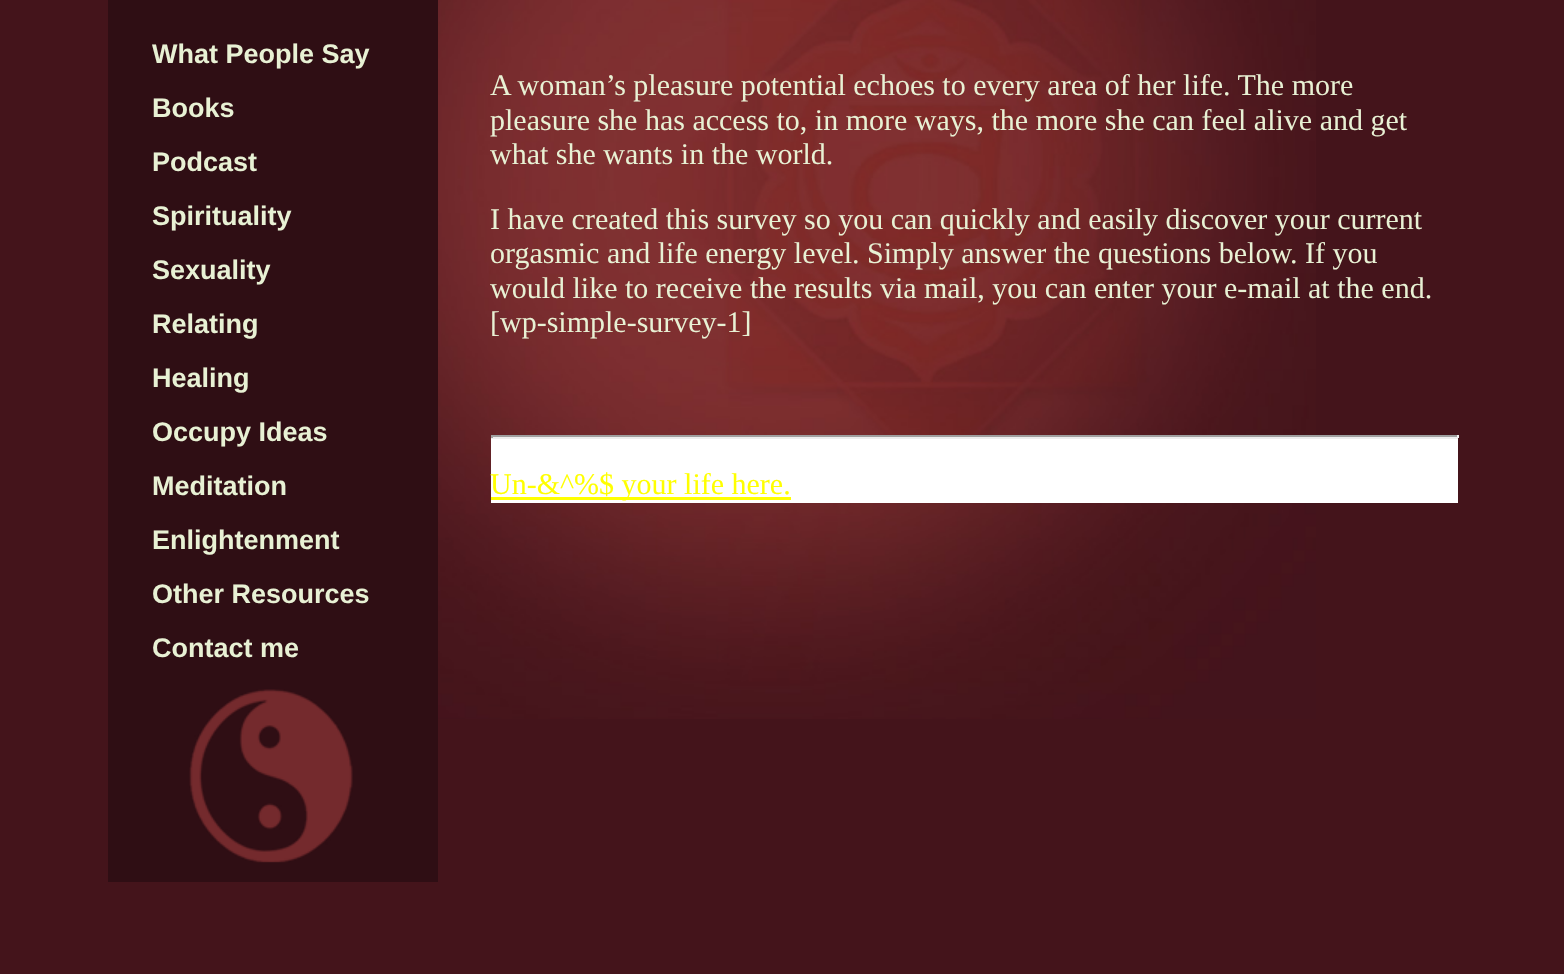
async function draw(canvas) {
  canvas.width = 1564;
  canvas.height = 974;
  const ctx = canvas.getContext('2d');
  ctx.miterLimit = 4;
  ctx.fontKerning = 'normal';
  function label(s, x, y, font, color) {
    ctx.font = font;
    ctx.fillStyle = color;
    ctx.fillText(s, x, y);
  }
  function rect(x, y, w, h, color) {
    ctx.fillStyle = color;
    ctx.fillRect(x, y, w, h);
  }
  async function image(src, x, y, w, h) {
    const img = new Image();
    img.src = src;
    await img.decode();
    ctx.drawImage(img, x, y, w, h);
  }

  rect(0, 0, 1564, 974, '#44141b');
  await image('assets/img1.png', 438, 0, 878, 719);
  rect(108, 0, 330, 882, '#2f0e14');
  label('What People Say', 152, 63, 'bold 27px Liberation Sans', '#e8f1d4');
  label('Books', 152, 117, 'bold 27px Liberation Sans', '#e8f1d4');
  label('Podcast', 152, 171, 'bold 27px Liberation Sans', '#e8f1d4');
  label('Spirituality', 152, 225, 'bold 27px Liberation Sans', '#e8f1d4');
  label('Sexuality', 152, 279, 'bold 27px Liberation Sans', '#e8f1d4');
  label('Relating', 152, 333, 'bold 27px Liberation Sans', '#e8f1d4');
  label('Healing', 152, 387, 'bold 27px Liberation Sans', '#e8f1d4');
  label('Occupy Ideas', 152, 441, 'bold 27px Liberation Sans', '#e8f1d4');
  label('Meditation', 152, 495, 'bold 27px Liberation Sans', '#e8f1d4');
  label('Enlightenment', 152, 549, 'bold 27px Liberation Sans', '#e8f1d4');
  label('Other Resources', 152, 603, 'bold 27px Liberation Sans', '#e8f1d4');
  label('Contact me', 152, 657, 'bold 27px Liberation Sans', '#e8f1d4');
  await image('assets/img2.png', 189, 689, 164, 174);
  label('A woman’s pleasure potential echoes to every area of her life. The more', 490, 95, '30px Liberation Serif', '#e8f1d4');
  label('pleasure she has access to, in more ways, the more she can feel alive and get', 490, 130, '30px Liberation Serif', '#e8f1d4');
  label('what she wants in the world.', 490, 164, '30px Liberation Serif', '#e8f1d4');
  label('I have created this survey so you can quickly and easily discover your current', 490, 229, '30px Liberation Serif', '#e8f1d4');
  label('orgasmic and life energy level. Simply answer the questions below. If you', 490, 263, '30px Liberation Serif', '#e8f1d4');
  label('would like to receive the results via mail, you can enter your e-mail at the end.', 490, 298, '30px Liberation Serif', '#e8f1d4');
  label('[wp-simple-survey-1]', 490, 332, '30px Liberation Serif', '#e8f1d4');
  rect(491, 439, 967, 64, '#fff');
  rect(491, 435, 967, 2, '#9f9f9f');
  rect(1457, 435, 2, 3, '#eee');
  rect(491, 437, 967, 2, '#eee');
  rect(491, 435, 2, 3, '#9f9f9f');
  rect(491, 497, 300, 3, '#ff0');
  label('Un-&^%$ your life here.', 490, 494, '30px Liberation Serif', '#ff0');
}

draw(document.querySelector('canvas'));
